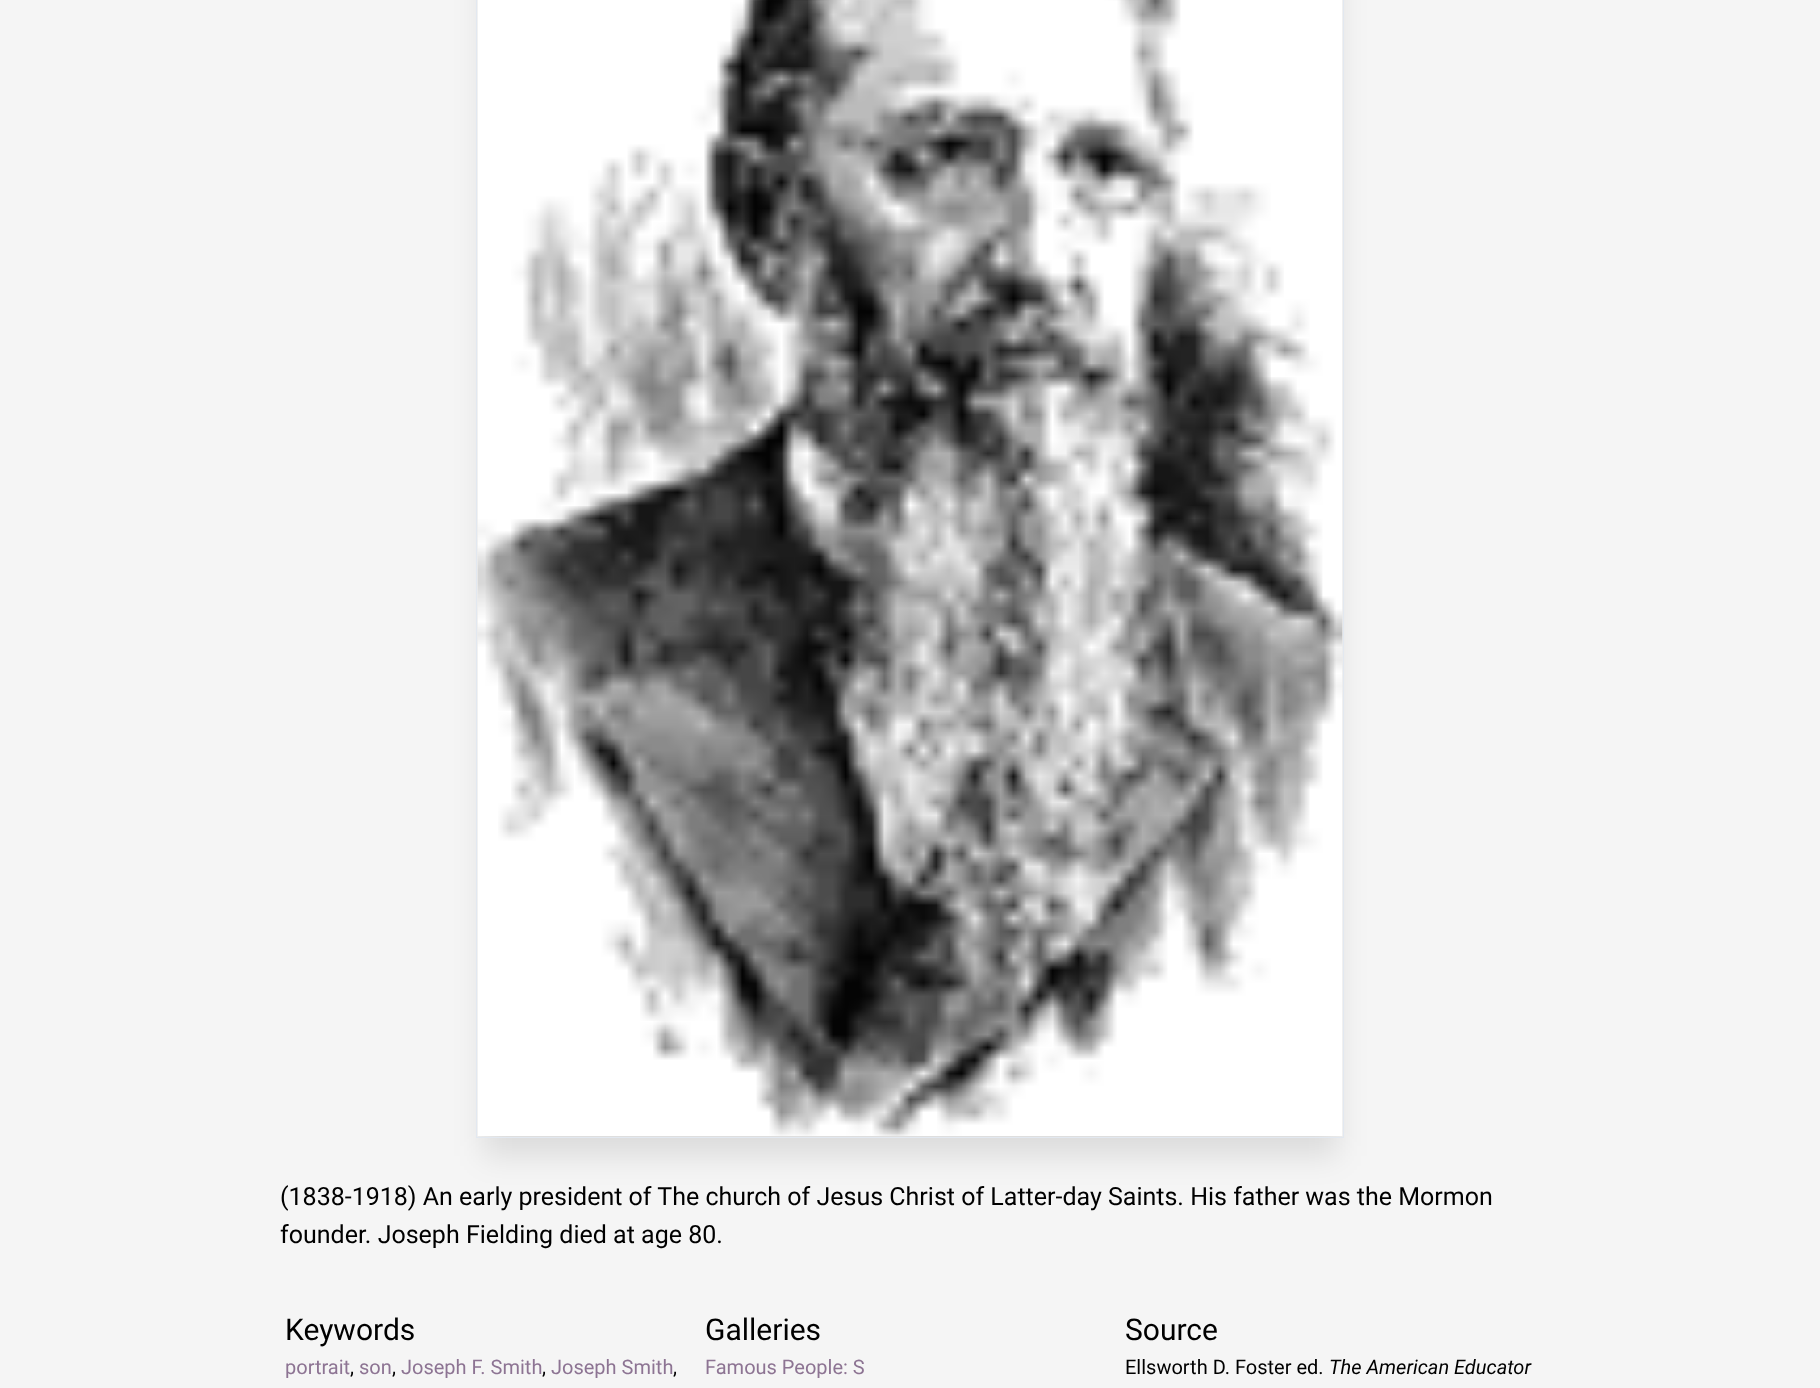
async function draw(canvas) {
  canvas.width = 1820;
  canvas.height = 1388;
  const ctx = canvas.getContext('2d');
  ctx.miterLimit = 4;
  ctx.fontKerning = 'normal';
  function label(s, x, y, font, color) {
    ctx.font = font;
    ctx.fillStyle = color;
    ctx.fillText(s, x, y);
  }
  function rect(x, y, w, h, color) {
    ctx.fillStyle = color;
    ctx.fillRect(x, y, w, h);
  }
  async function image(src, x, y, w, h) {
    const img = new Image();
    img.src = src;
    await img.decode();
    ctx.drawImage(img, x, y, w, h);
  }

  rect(0, 0, 1820, 1388, '#f5f5f5');
  ctx.fillStyle = '#0000001a';
  ctx.filter = 'blur(15.5px)';
  ctx.beginPath();
  ctx.rect(483, -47, 855, 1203);
  ctx.fill();
  ctx.filter = 'none';
  ctx.strokeStyle = '#e2e8f0';
  ctx.strokeRect(476.5, -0.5, 867, 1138);
  await image('assets/img1.png', 477, 0, 866, 1136);
  label('(1838-1918) An early president of The church of Jesus Christ of Latter-day Saints. His father was the Mormon', 280, 1205, '25px Roboto', '#000');
  label('founder. Joseph Fielding died at age 80.', 280, 1243, '25px Roboto', '#000');
  label('Keywords', 285, 1340, '30px Roboto', '#000');
  label('portrait', 285, 1374, '20px Roboto', '#8d7493');
  label(',', 350, 1374, '20px Roboto', '#000');
  label('son', 359, 1374, '20px Roboto', '#8d7493');
  label(',', 392, 1374, '20px Roboto', '#000');
  label('Joseph F. Smith', 401, 1374, '20px Roboto', '#8d7493');
  label(',', 542, 1374, '20px Roboto', '#000');
  label('Joseph Smith', 551, 1374, '20px Roboto', '#8d7493');
  label(',', 673, 1374, '20px Roboto', '#000');
  label('Galleries', 705, 1340, '30px Roboto', '#000');
  label('Famous People: S', 705, 1374, '20px Roboto', '#8d7493');
  label('Source', 1125, 1340, '30px Roboto', '#000');
  label('Ellsworth D. Foster ed.', 1125, 1374, '20px Roboto', '#000');
  label('The American Educator', 1329, 1374, 'italic 20px Roboto', '#000');
}

draw(document.querySelector('canvas'));
